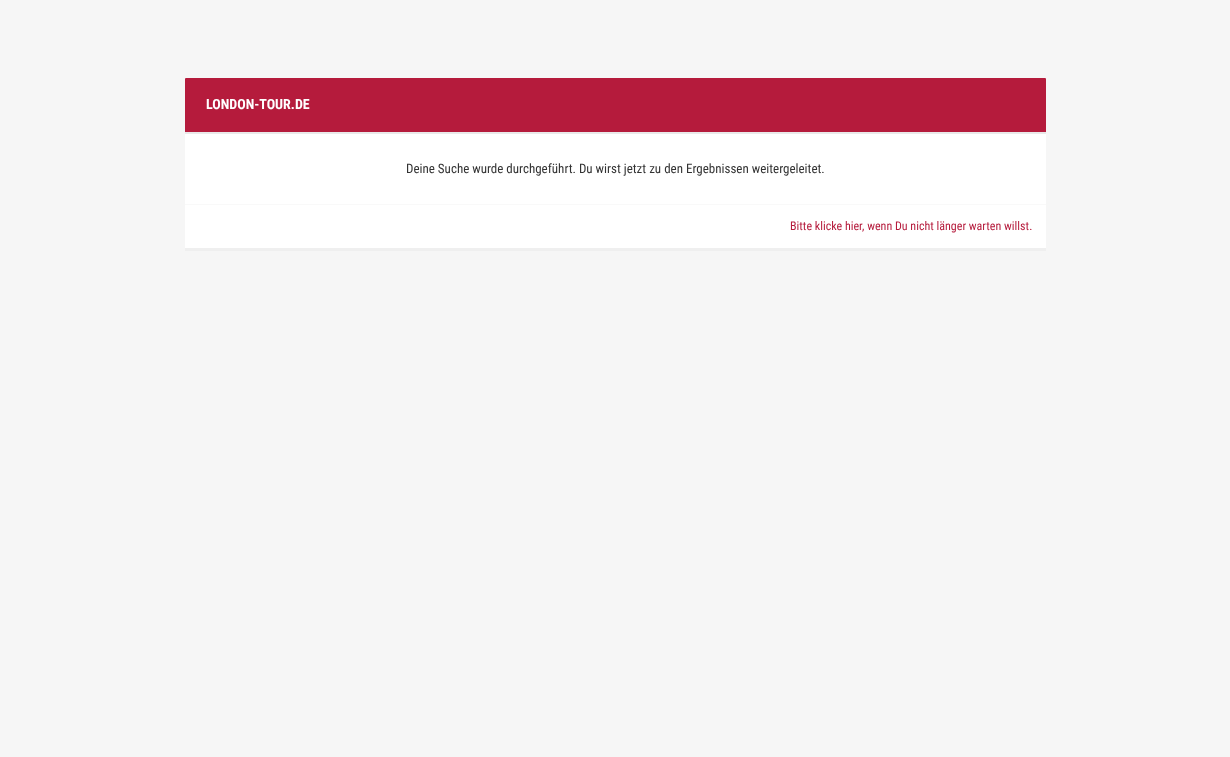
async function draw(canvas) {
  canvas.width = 1230;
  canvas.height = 757;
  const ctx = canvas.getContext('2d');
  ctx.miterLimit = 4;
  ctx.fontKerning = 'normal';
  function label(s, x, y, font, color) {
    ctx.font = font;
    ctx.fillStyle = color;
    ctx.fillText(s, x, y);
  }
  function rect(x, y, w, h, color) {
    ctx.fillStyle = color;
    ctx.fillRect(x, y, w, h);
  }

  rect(0, 0, 1230, 757, '#f6f6f6');
  rect(185, 78, 861, 170, '#fff');
  rect(185, 248, 861, 3, '#efefef');
  ctx.fillStyle = '#b51b3c';
  ctx.beginPath();
  ctx.roundRect(185, 78, 861, 56, [1, 1, 0, 0]);
  ctx.fill();
  rect(185, 132, 861, 2, '#e9e9e9');
  label('LONDON-TOUR.DE', 206, 109, 'bold 14px Roboto Condensed', '#fff');
  rect(185, 204, 861, 1, '#f9f9f9');
  label('Deine Suche wurde durchgeführt. Du wirst jetzt zu den Ergebnissen weitergeleitet.', 406, 173, '13px Roboto Condensed', '#333');
  label('Bitte klicke hier, wenn Du nicht länger warten willst.', 790, 230, '12px Roboto Condensed', '#b51b3c');
}

draw(document.querySelector('canvas'));
